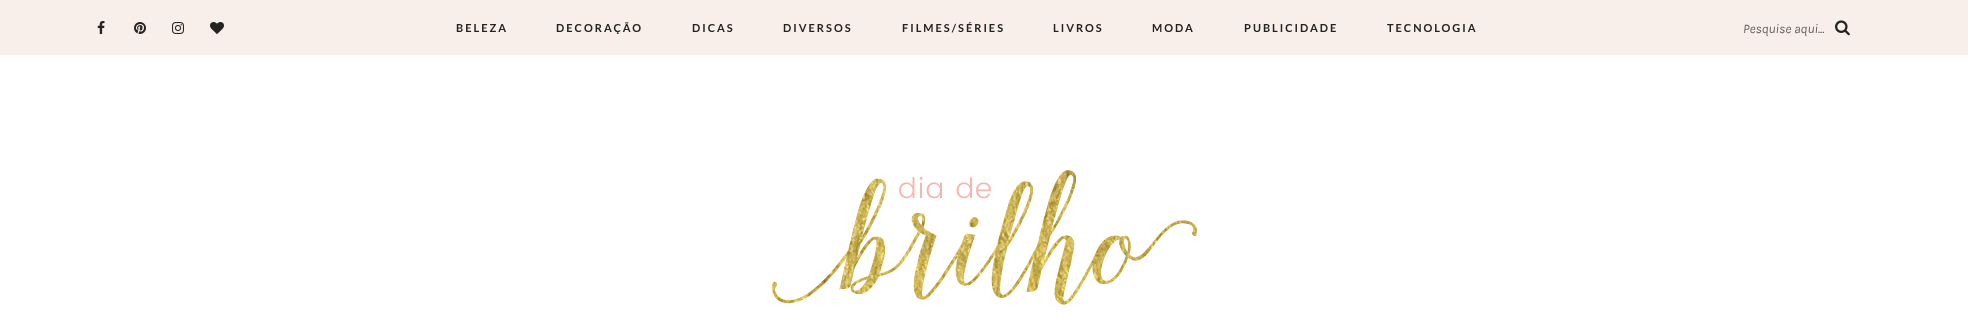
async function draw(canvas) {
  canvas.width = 1968;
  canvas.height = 322;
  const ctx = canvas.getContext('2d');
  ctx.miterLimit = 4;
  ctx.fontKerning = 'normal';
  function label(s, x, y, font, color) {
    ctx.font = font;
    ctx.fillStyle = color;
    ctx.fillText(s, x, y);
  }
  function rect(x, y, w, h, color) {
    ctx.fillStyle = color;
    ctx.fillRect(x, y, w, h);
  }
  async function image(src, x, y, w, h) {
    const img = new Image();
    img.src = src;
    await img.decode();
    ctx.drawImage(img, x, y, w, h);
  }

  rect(0, 0, 1968, 322, '#fff');
  rect(0, 0, 1968, 55, '#f8efea');
  await image('assets/img1.png', 97, 21, 8, 13);
  await image('assets/img2.png', 134, 22, 12, 12);
  await image('assets/img3.png', 172, 22, 12, 12);
  await image('assets/img4.png', 210, 22, 14, 12);
  ctx.letterSpacing = '2px';
  label('BELEZA', 456, 32, 'bold 11px Lato', '#232323');
  label('DECORAÇÃO', 556, 32, 'bold 11px Lato', '#232323');
  label('DICAS', 692, 32, 'bold 11px Lato', '#232323');
  label('DIVERSOS', 783, 32, 'bold 11px Lato', '#232323');
  label('FILMES/SÉRIES', 902, 32, 'bold 11px Lato', '#232323');
  label('LIVROS', 1053, 32, 'bold 11px Lato', '#232323');
  label('MODA', 1152, 32, 'bold 11px Lato', '#232323');
  label('PUBLICIDADE', 1244, 32, 'bold 11px Lato', '#232323');
  label('TECNOLOGIA', 1387, 32, 'bold 11px Lato', '#232323');
  ctx.letterSpacing = '0px';
  label('Pesquise aqui...', 1743, 33, 'italic 13px Karla', '#63605f');
  await image('assets/img5.png', 1835, 20, 15, 16);
  await image('assets/img6.png', 772, 170, 425, 135);
}

draw(document.querySelector('canvas'));
